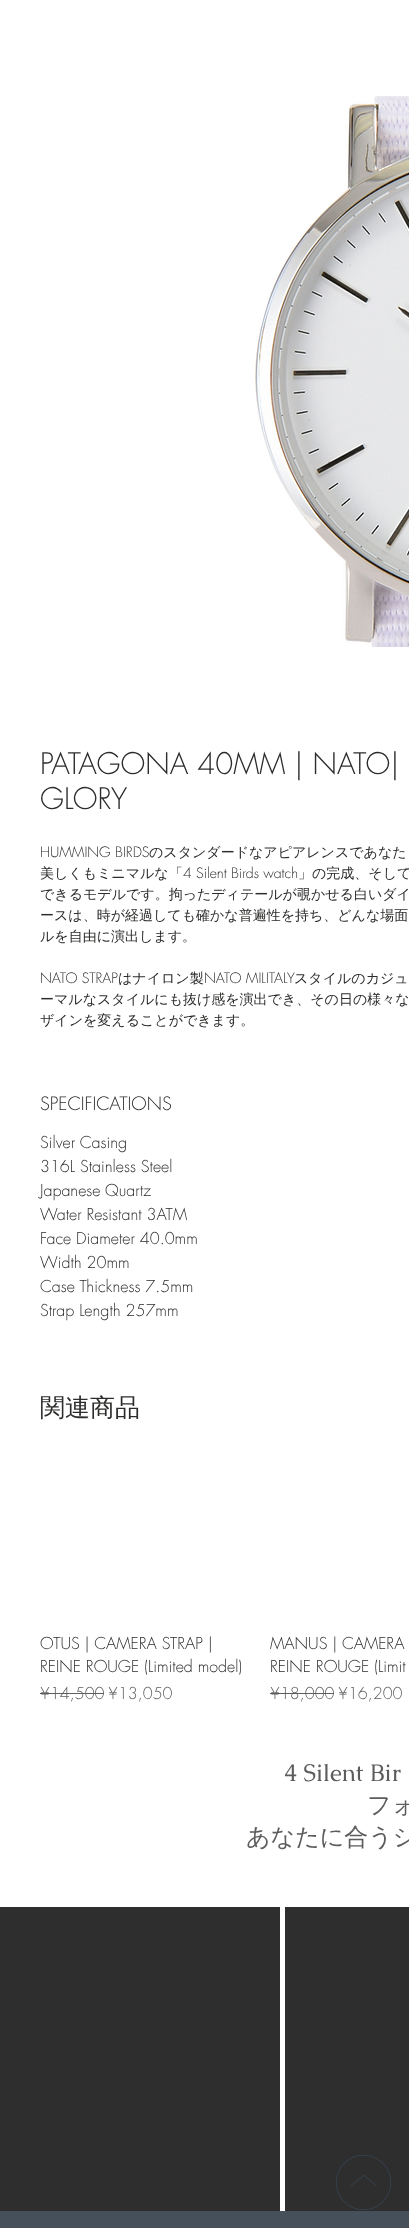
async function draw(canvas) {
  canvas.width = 409;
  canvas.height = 2228;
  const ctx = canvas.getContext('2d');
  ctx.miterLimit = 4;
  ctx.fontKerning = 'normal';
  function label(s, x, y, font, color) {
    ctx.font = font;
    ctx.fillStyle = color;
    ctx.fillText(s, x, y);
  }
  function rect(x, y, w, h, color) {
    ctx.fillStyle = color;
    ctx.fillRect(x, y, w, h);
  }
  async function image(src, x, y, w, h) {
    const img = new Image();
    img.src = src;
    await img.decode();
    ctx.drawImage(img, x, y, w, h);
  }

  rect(0, 0, 409, 2228, '#fff');
  await image('assets/img1.png', 255, 96, 154, 551);
  label('PATAGONA 40MM | NATO|', 40, 774, '300 29px futura', '#2c2c2b');
  label('GLORY', 40, 809, '300 29px futura', '#2c2c2b');
  label('HUMMING BIRDS', 40, 857, '300 14px futura', '#2c2c2b');
  label('のスタンダードなアピアレンスであなた', 149, 857, '500 14px WenQuanYi Zen Hei', '#2c2c2b');
  label('美しくもミニマルな「', 40, 878, '500 14px WenQuanYi Zen Hei', '#2c2c2b');
  label('4 Silent Birds watch', 183, 878, '300 14px futura', '#2c2c2b');
  label('」の完成、そして', 298, 878, '500 14px WenQuanYi Zen Hei', '#2c2c2b');
  label('できるモデルです。拘ったディテールが覗かせる白いダイ', 40, 899, '500 14px WenQuanYi Zen Hei', '#2c2c2b');
  label('ースは、時が経過しても確かな普遍性を持ち、どんな場面', 40, 920, '500 14px WenQuanYi Zen Hei', '#2c2c2b');
  label('ルを自由に演出します。', 40, 941, '500 14px WenQuanYi Zen Hei', '#2c2c2b');
  label('NATO STRAP', 40, 983, '300 14px futura', '#2c2c2b');
  label('はナイロン製', 118, 983, '500 14px WenQuanYi Zen Hei', '#2c2c2b');
  label('NATO MILITALY', 204, 983, '300 14px futura', '#2c2c2b');
  label('スタイルのカジュ', 294, 983, '500 14px WenQuanYi Zen Hei', '#2c2c2b');
  label('ーマルなスタイルにも抜け感を演出でき、その日の様々な', 40, 1004, '500 14px WenQuanYi Zen Hei', '#2c2c2b');
  label('ザインを変えることができます。', 40, 1025, '500 14px WenQuanYi Zen Hei', '#2c2c2b');
  label('SPECIFICATIONS', 40, 1110, '300 18px futura', '#2c2c2b');
  label('Silver Casing', 40, 1148, '300 16px futura', '#2c2c2b');
  label('316L Stainless Steel', 40, 1172, '300 16px futura', '#2c2c2b');
  label('Japanese Quartz', 40, 1196, '300 16px futura', '#2c2c2b');
  label('Water Resistant 3ATM', 40, 1220, '300 16px futura', '#2c2c2b');
  label('Face Diameter 40.0mm', 40, 1244, '300 16px futura', '#2c2c2b');
  label('Width 20mm', 40, 1268, '300 16px futura', '#2c2c2b');
  label('Case Thickness 7.5mm', 40, 1292, '300 16px futura', '#2c2c2b');
  label('Strap Length 257mm', 40, 1316, '300 16px futura', '#2c2c2b');
  label('関連商品', 40, 1416, '500 25px WenQuanYi Zen Hei', '#2c2c2b');
  label('OTUS | CAMERA STRAP |', 40, 1649, '300 16px futura', '#2c2c2b');
  label('REINE ROUGE (Limited model)', 40, 1672, '300 16px futura', '#2c2c2b');
  label('¥14,500', 40, 1699, '300 16px futura', '#5e5d5d');
  rect(40, 1693, 64, 1, '#5e5d5d');
  label('¥13,050', 108, 1699, '300 16px futura', '#5e5d5d');
  label('MANUS | CAMERA', 270, 1649, '300 16px futura', '#2c2c2b');
  label('REINE ROUGE (Limit', 270, 1672, '300 16px futura', '#2c2c2b');
  label('¥18,000', 270, 1699, '300 16px futura', '#5e5d5d');
  rect(270, 1693, 64, 1, '#5e5d5d');
  label('¥16,200', 338, 1699, '300 16px futura', '#5e5d5d');
  label('4 Silent Bir', 284, 1781, '24px Caudex', '#5e5d5d');
  label('フォ', 367, 1813, '500 24px WenQuanYi Zen Hei', '#5e5d5d');
  label('あなたに合うシ', 246, 1845, '500 24px WenQuanYi Zen Hei', '#5e5d5d');
  rect(0, 1907, 280, 304, '#2f2e2e');
  rect(285, 1907, 124, 304, '#2f2e2e');
  await image('assets/img2.png', 336, 2155, 55, 55);
  rect(0, 2211, 409, 17, '#45505a');
}

draw(document.querySelector('canvas'));
